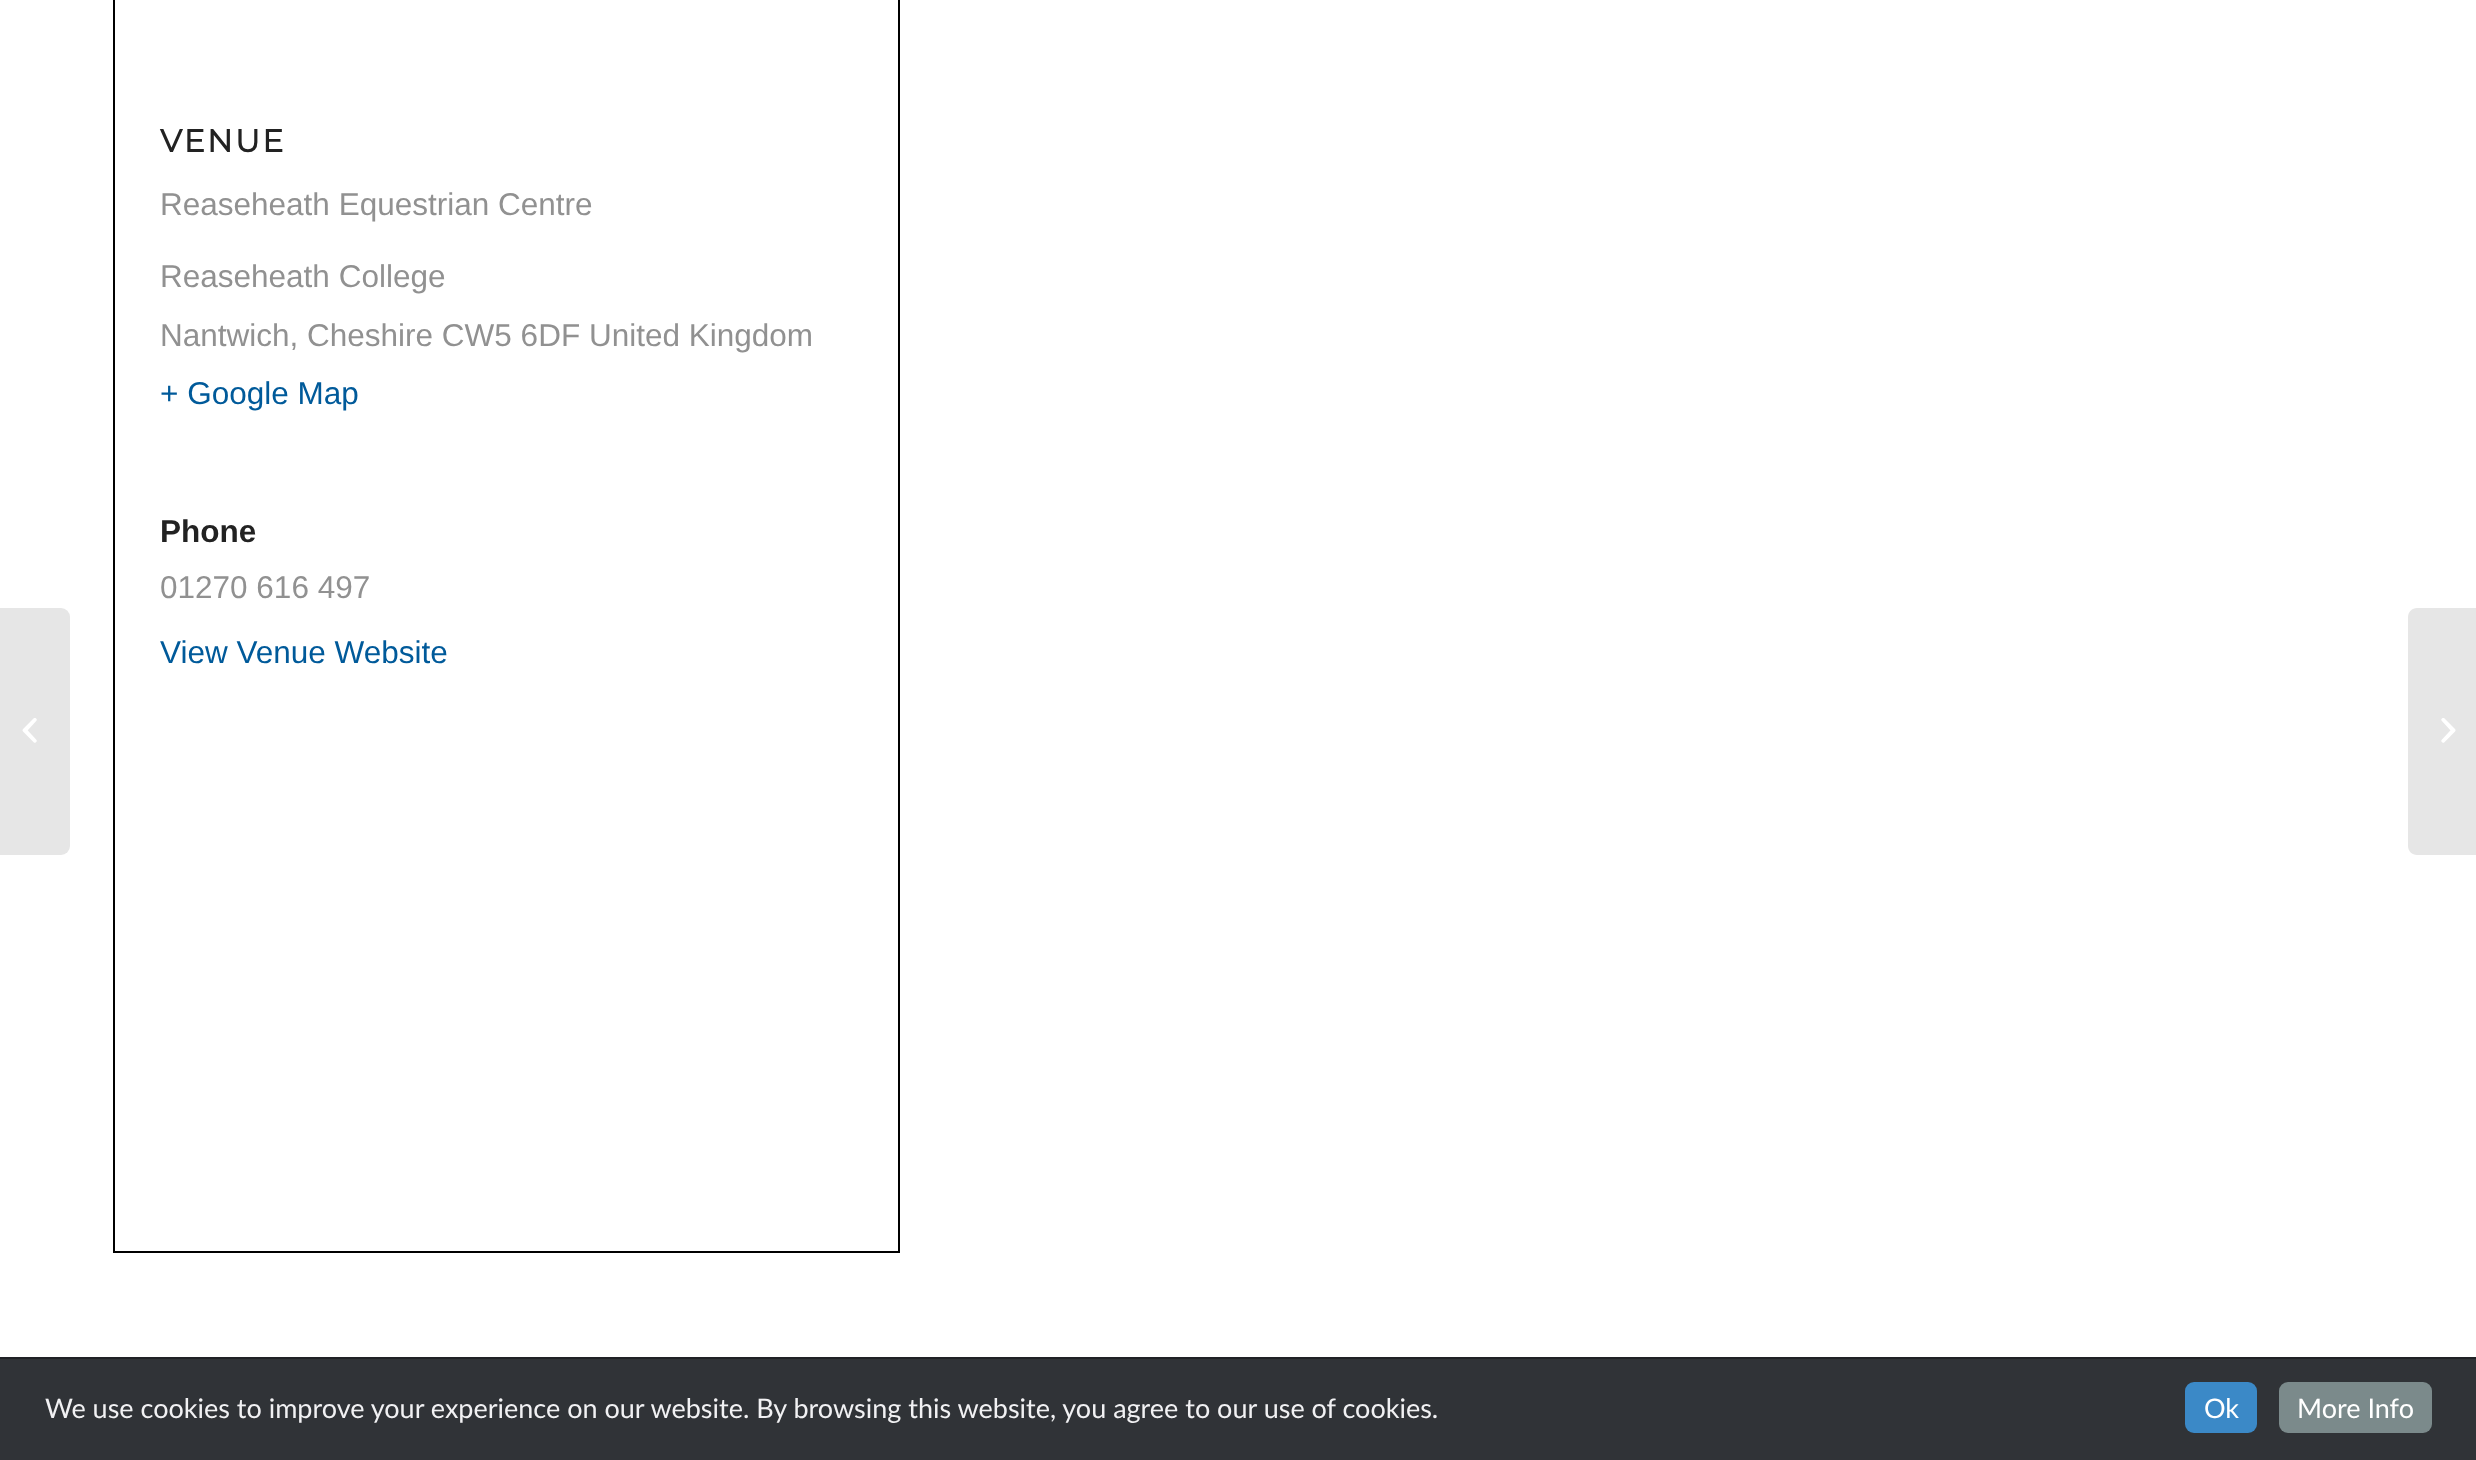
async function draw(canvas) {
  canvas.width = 2476;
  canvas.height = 1460;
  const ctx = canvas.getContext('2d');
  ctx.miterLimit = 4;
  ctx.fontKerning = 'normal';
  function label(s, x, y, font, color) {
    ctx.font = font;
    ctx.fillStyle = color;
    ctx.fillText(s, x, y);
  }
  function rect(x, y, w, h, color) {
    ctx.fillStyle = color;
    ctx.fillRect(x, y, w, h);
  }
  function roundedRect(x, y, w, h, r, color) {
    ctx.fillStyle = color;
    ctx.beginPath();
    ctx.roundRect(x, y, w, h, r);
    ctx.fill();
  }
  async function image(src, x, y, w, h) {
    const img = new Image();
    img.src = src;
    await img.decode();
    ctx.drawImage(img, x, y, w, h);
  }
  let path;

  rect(0, 0, 2476, 1460, '#fff');
  ctx.strokeStyle = '#000';
  ctx.lineWidth = 2;
  ctx.strokeRect(114, -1, 785, 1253);
  ctx.letterSpacing = '2.25px';
  label('VENUE', 160, 152, 'bold 31.5px Montserrat', '#222');
  ctx.letterSpacing = '0px';
  label('Reaseheath Equestrian Centre', 160, 215, '31.5px Liberation Sans', '#919191');
  label('Reaseheath College', 160, 287, '31.5px Liberation Sans', '#919191');
  label('Nantwich, Cheshire CW5 6DF United Kingdom', 160, 346, '31.5px Liberation Sans', '#919191');
  label('+ Google Map', 160, 404, '31.5px Liberation Sans', '#005a9a');
  label('Phone', 160, 542, 'bold 31.5px Liberation Sans', '#222');
  label('01270 616 497', 160, 598, '31.5px Liberation Sans', '#919191');
  label('View Venue Website', 160, 663, '31.5px Liberation Sans', '#005a9a');
  ctx.fillStyle = '#e6e6e6';
  ctx.beginPath();
  ctx.roundRect(0, 608, 70, 247, [0, 9, 9, 0]);
  ctx.fill();
  await image('assets/img1.png', 22, 718, 15, 25);
  path = new Path2D('M2417 608H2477V855H2417C2412 855 2408 851 2408 846V617C2408 612 2412 608 2417 608Z');
  ctx.fill(path);
  await image('assets/img2.png', 2441, 718, 15, 25);
  rect(0, 1357, 2476, 2, '#202226');
  rect(0, 1359, 2476, 101, '#303337');
  label('We use cookies to improve your experience on our website. By browsing this website, you agree to our use of cookies.', 45, 1418, '27px Lato', '#f1f1f3');
  roundedRect(2185, 1382, 72, 51, 9, '#3b89c7');
  label('Ok', 2204, 1418, '27px Lato', '#fff');
  roundedRect(2279, 1382, 153, 51, 9, '#7b8a8b');
  label('More Info', 2297, 1418, '27px Lato', '#fff');
}

draw(document.querySelector('canvas'));
